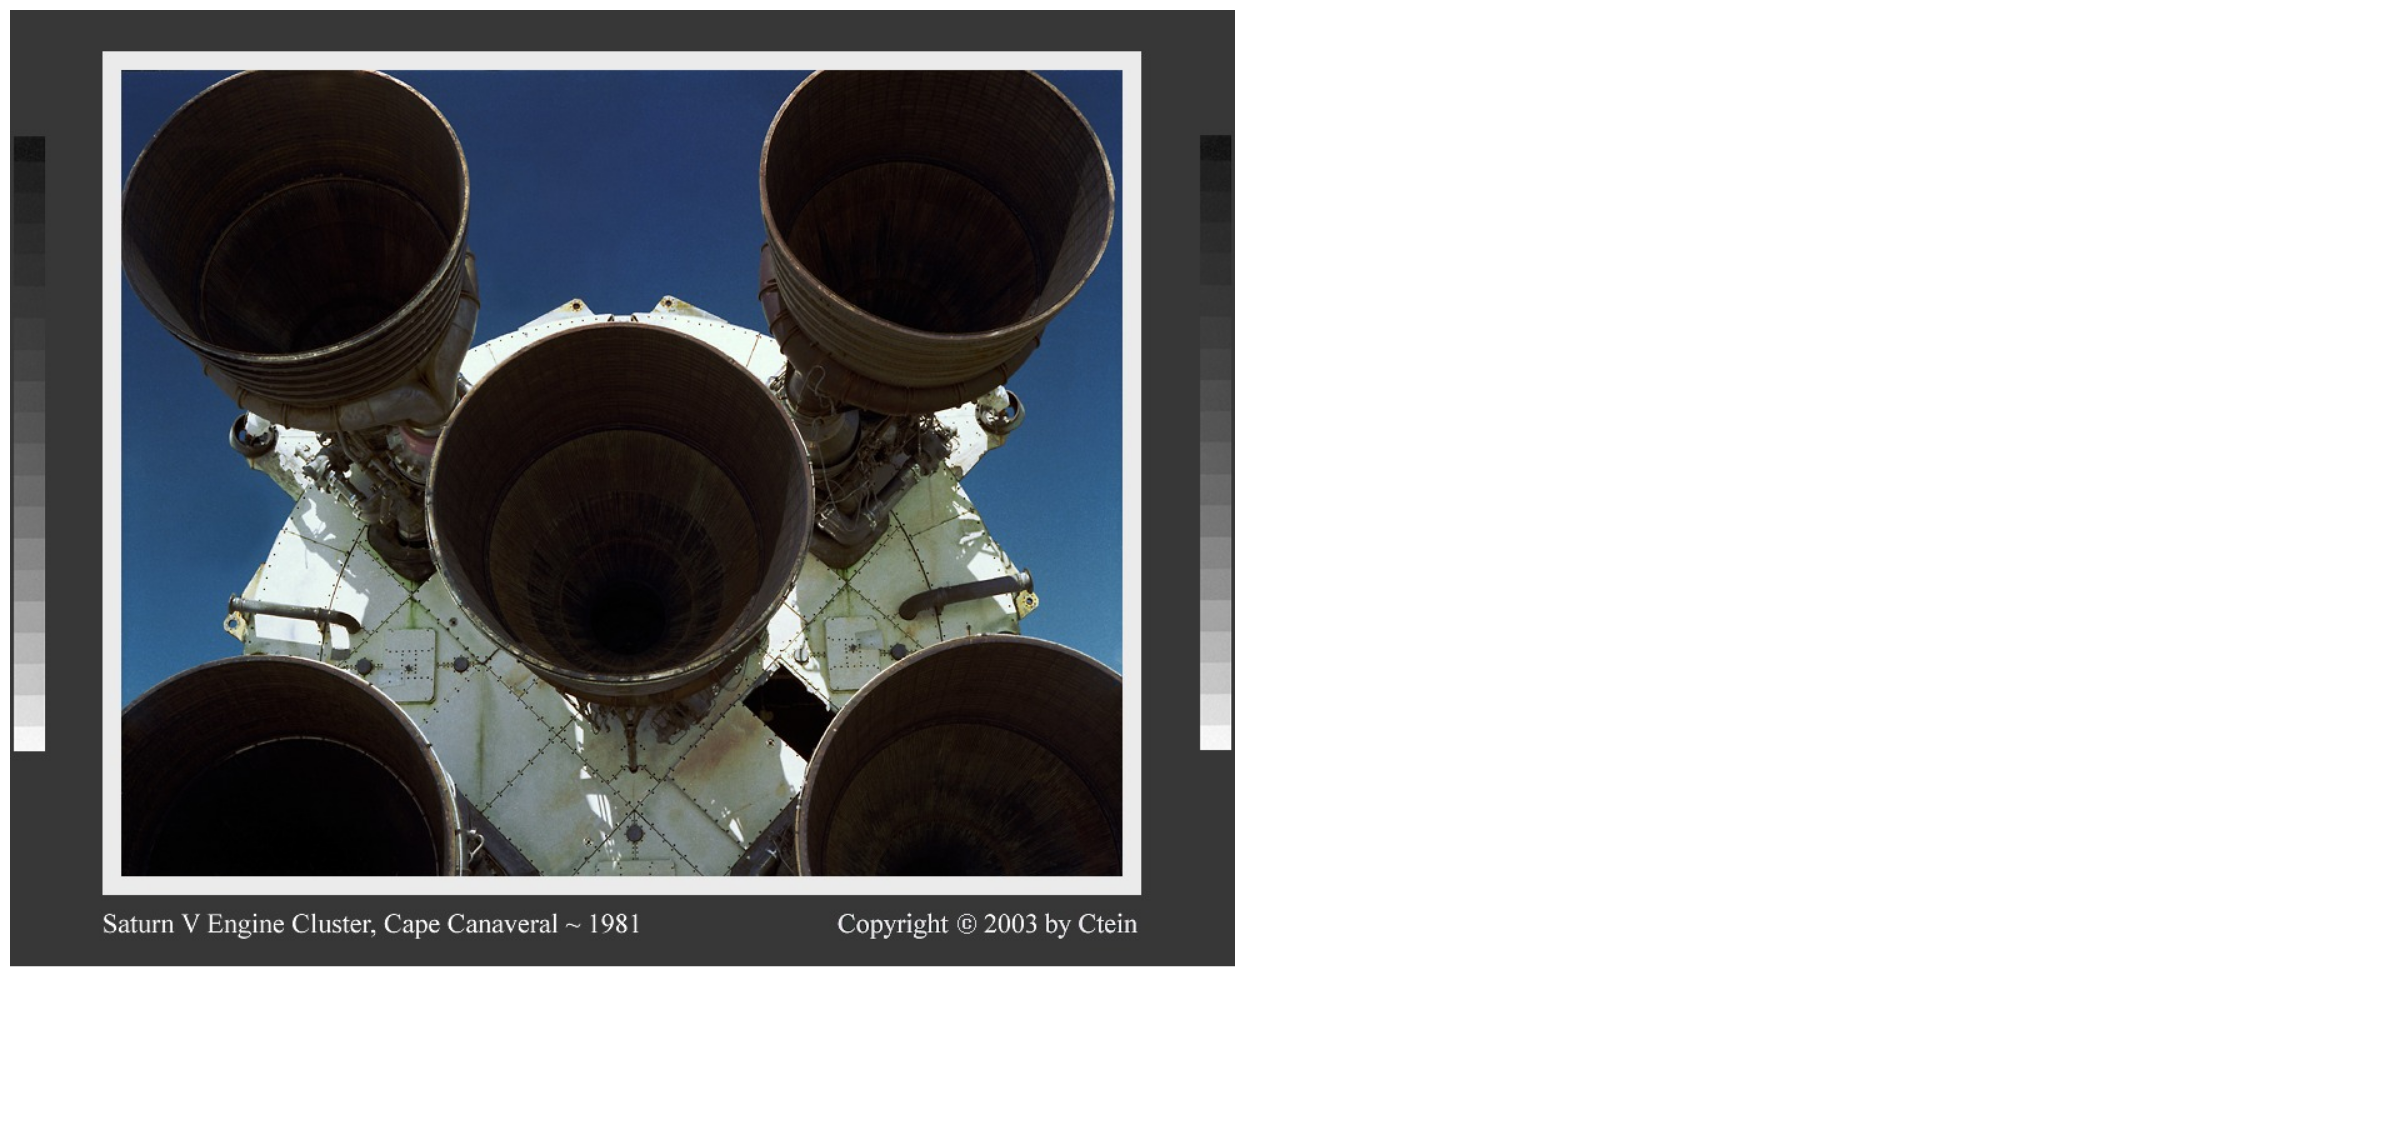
#include "include/core/SkBlurTypes.h"
#include "include/core/SkCanvas.h"
#include "include/core/SkData.h"
#include "include/core/SkFont.h"
#include "include/core/SkFontMgr.h"
#include "include/core/SkImage.h"
#include "include/core/SkMaskFilter.h"
#include "include/core/SkPaint.h"
#include "include/core/SkPathBuilder.h"
#include "include/core/SkTextBlob.h"
#include "include/effects/SkDashPathEffect.h"
#include "include/effects/SkGradientShader.h"
#include "include/utils/SkParsePath.h"

extern sk_sp<SkFontMgr> fontMgr;

void draw(SkCanvas* canvas) {
  SkPaint p;
  p.setAntiAlias(true);
  canvas->clear(SK_ColorWHITE);
  canvas->drawImageRect(SkImages::DeferredFromEncodedData(SkData::MakeFromFileName("images/1.png")), SkRect::MakeLTRB(10, 10, 1235, 967), SkSamplingOptions());
}
